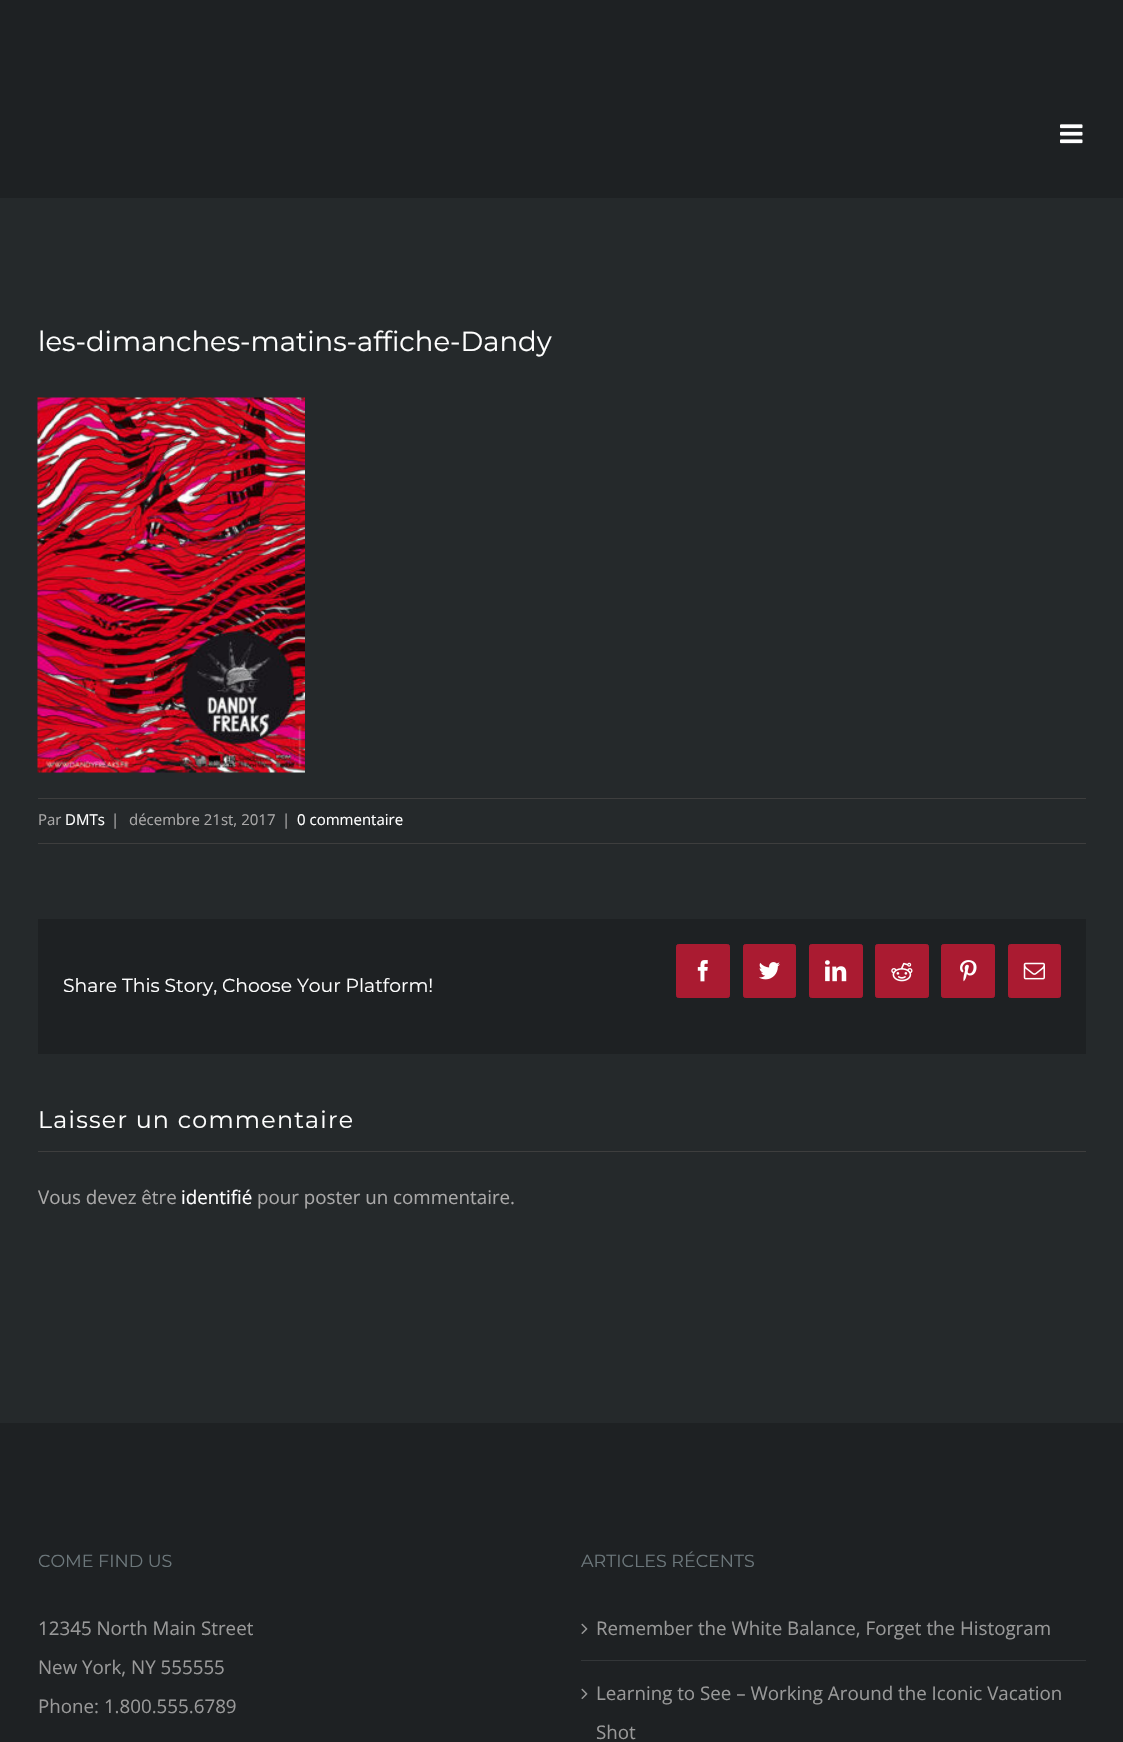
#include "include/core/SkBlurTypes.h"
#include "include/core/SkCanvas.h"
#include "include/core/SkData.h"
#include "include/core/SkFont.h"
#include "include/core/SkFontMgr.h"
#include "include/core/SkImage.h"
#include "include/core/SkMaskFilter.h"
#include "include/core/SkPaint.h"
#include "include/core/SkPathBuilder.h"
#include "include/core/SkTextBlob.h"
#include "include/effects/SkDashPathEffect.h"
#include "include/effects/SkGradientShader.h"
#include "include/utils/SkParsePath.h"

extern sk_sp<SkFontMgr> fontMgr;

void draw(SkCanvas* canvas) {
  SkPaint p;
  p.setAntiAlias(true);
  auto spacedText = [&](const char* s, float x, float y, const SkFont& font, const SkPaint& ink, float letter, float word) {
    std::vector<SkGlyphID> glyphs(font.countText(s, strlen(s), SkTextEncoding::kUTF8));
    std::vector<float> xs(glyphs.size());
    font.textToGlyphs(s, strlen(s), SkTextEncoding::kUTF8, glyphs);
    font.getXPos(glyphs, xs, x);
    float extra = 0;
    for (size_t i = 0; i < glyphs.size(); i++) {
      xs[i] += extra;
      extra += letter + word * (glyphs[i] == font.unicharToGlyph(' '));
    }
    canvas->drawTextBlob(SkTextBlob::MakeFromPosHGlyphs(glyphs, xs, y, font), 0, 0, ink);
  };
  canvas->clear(SkColorSetRGB(37, 41, 43));
  p.setColor(SkColorSetRGB(30, 33, 35));
  canvas->drawRect(SkRect::MakeLTRB(0, 0, 1123, 198), p);
  canvas->drawImageRect(SkImages::DeferredFromEncodedData(SkData::MakeFromFileName("images/1.png")), SkRect::MakeLTRB(1060, 124, 1083, 144), SkSamplingOptions());
  canvas->drawImageRect(SkImages::DeferredFromEncodedData(SkData::MakeFromFileName("images/2.png")), SkRect::MakeLTRB(37, 397, 305, 773), SkSamplingOptions());
  p.setColor(SkColorSetRGB(62, 62, 62));
  canvas->drawRect(SkRect::MakeLTRB(38, 798, 1086, 799), p);
  canvas->drawRect(SkRect::MakeLTRB(38, 843, 1086, 844), p);
  p.setColor(SkColorSetRGB(30, 33, 35));
  canvas->drawRect(SkRect::MakeLTRB(38, 919, 1086, 1054), p);
  p.setColor(SkColorSetRGB(170, 27, 49));
  canvas->drawRoundRect(SkRect::MakeLTRB(676.5f, 944.5f, 729.5f, 997.5f), 2, 2, p);
  p.setStyle(SkPaint::kStroke_Style);
  p.setStrokeWidth(1);
  canvas->drawRoundRect(SkRect::MakeLTRB(676.5f, 944.5f, 729.5f, 997.5f), 2, 2, p);
  canvas->drawImageRect(SkImages::DeferredFromEncodedData(SkData::MakeFromFileName("images/3.png")), SkRect::MakeLTRB(697, 960, 708, 982), SkSamplingOptions());
  p.setStyle(SkPaint::kFill_Style);
  canvas->drawRoundRect(SkRect::MakeLTRB(743.5f, 944.5f, 795.5f, 997.5f), 2, 2, p);
  p.setStyle(SkPaint::kStroke_Style);
  canvas->drawRoundRect(SkRect::MakeLTRB(743.5f, 944.5f, 795.5f, 997.5f), 2, 2, p);
  canvas->drawImageRect(SkImages::DeferredFromEncodedData(SkData::MakeFromFileName("images/4.png")), SkRect::MakeLTRB(759, 962, 780, 980), SkSamplingOptions());
  p.setStyle(SkPaint::kFill_Style);
  canvas->drawRoundRect(SkRect::MakeLTRB(809.5f, 944.5f, 862.5f, 997.5f), 2, 2, p);
  p.setStyle(SkPaint::kStroke_Style);
  canvas->drawRoundRect(SkRect::MakeLTRB(809.5f, 944.5f, 862.5f, 997.5f), 2, 2, p);
  canvas->drawImageRect(SkImages::DeferredFromEncodedData(SkData::MakeFromFileName("images/5.png")), SkRect::MakeLTRB(825, 960, 847, 982), SkSamplingOptions());
  p.setStyle(SkPaint::kFill_Style);
  canvas->drawRoundRect(SkRect::MakeLTRB(875.5f, 944.5f, 928.5f, 997.5f), 2, 2, p);
  p.setStyle(SkPaint::kStroke_Style);
  canvas->drawRoundRect(SkRect::MakeLTRB(875.5f, 944.5f, 928.5f, 997.5f), 2, 2, p);
  canvas->drawImageRect(SkImages::DeferredFromEncodedData(SkData::MakeFromFileName("images/6.png")), SkRect::MakeLTRB(891, 962, 913, 982), SkSamplingOptions());
  p.setStyle(SkPaint::kFill_Style);
  canvas->drawRoundRect(SkRect::MakeLTRB(941.5f, 944.5f, 994.5f, 997.5f), 2, 2, p);
  p.setStyle(SkPaint::kStroke_Style);
  canvas->drawRoundRect(SkRect::MakeLTRB(941.5f, 944.5f, 994.5f, 997.5f), 2, 2, p);
  canvas->drawImageRect(SkImages::DeferredFromEncodedData(SkData::MakeFromFileName("images/7.png")), SkRect::MakeLTRB(960, 960, 977, 982), SkSamplingOptions());
  p.setStyle(SkPaint::kFill_Style);
  canvas->drawRoundRect(SkRect::MakeLTRB(1008.5f, 944.5f, 1060.5f, 997.5f), 2, 2, p);
  p.setStyle(SkPaint::kStroke_Style);
  canvas->drawRoundRect(SkRect::MakeLTRB(1008.5f, 944.5f, 1060.5f, 997.5f), 2, 2, p);
  canvas->drawImageRect(SkImages::DeferredFromEncodedData(SkData::MakeFromFileName("images/8.png")), SkRect::MakeLTRB(1023, 962, 1045, 980), SkSamplingOptions());
  p.setStyle(SkPaint::kFill_Style);
  p.setColor(SkColorSetRGB(62, 62, 62));
  canvas->drawRect(SkRect::MakeLTRB(38, 1151, 1086, 1152), p);
  p.setColor(SkColorSetRGB(30, 33, 35));
  canvas->drawRect(SkRect::MakeLTRB(0, 1423, 1123, 1742), p);
  p.setColor(SkColorSetRGB(51, 54, 56));
  canvas->drawRect(SkRect::MakeLTRB(581, 1660, 1086, 1661), p);
  canvas->drawImageRect(SkImages::DeferredFromEncodedData(SkData::MakeFromFileName("images/9.png")), SkRect::MakeLTRB(581, 1623, 588, 1634), SkSamplingOptions());
  canvas->drawImageRect(SkImages::DeferredFromEncodedData(SkData::MakeFromFileName("images/9.png")), SkRect::MakeLTRB(581, 1688, 588, 1699), SkSamplingOptions());
  SkFont font1(fontMgr->matchFamilyStyle("Montserrat", SkFontStyle(100, SkFontStyle::kNormal_Width, SkFontStyle::kUpright_Slant)), 27.5f);
  font1.setSubpixel(true);
  p.setColor(SK_ColorWHITE);
  canvas->drawString("les-dimanches-matins-affiche-Dandy", 38, 351, font1, p);
  SkFont font2(fontMgr->matchFamilyStyle("Open Sans", SkFontStyle::Normal()), 15);
  font2.setSubpixel(true);
  p.setColor(SkColorSetRGB(170, 169, 169));
  canvas->drawString("Par", 38, 825, font2, p);
  p.setColor(SK_ColorWHITE);
  canvas->drawString("DMTs", 65, 825, font2, p);
  p.setColor(SkColorSetRGB(170, 169, 169));
  canvas->drawString("|", 111, 825, font2, p);
  canvas->drawString("décembre 21st, 2017", 129, 825, font2, p);
  canvas->drawString("|", 282, 825, font2, p);
  p.setColor(SK_ColorWHITE);
  canvas->drawString("0 commentaire", 297, 825, font2, p);
  SkFont font3(fontMgr->matchFamilyStyle("Montserrat", SkFontStyle(100, SkFontStyle::kNormal_Width, SkFontStyle::kUpright_Slant)), 18.75f);
  font3.setSubpixel(true);
  canvas->drawString("Share This Story, Choose Your Platform!", 63, 992, font3, p);
  SkFont font4(fontMgr->matchFamilyStyle("Montserrat", SkFontStyle(100, SkFontStyle::kNormal_Width, SkFontStyle::kUpright_Slant)), 23.75f);
  font4.setSubpixel(true);
  spacedText("Laisser un commentaire", 38, 1128, font4, p, 1.25f, 0);
  SkFont font5(fontMgr->matchFamilyStyle("Open Sans", SkFontStyle::Normal()), 18.75f);
  font5.setSubpixel(true);
  p.setColor(SkColorSetRGB(170, 169, 169));
  canvas->drawString("Vous devez être", 38, 1204, font5, p);
  p.setColor(SK_ColorWHITE);
  canvas->drawString("identifié", 181, 1204, font5, p);
  p.setColor(SkColorSetRGB(170, 169, 169));
  canvas->drawString("pour poster un commentaire.", 257, 1204, font5, p);
  SkFont font6(fontMgr->matchFamilyStyle("Montserrat", SkFontStyle(100, SkFontStyle::kNormal_Width, SkFontStyle::kUpright_Slant)), 17.5f);
  font6.setSubpixel(true);
  p.setColor(SkColorSetRGB(108, 119, 123));
  canvas->drawString("COME FIND US", 38, 1567, font6, p);
  p.setColor(SkColorSetRGB(153, 153, 153));
  canvas->drawString("12345 North Main Street", 38, 1635, font5, p);
  canvas->drawString("New York, NY 555555", 38, 1674, font5, p);
  canvas->drawString("Phone: 1.800.555.6789", 38, 1713, font5, p);
  p.setColor(SkColorSetRGB(108, 119, 123));
  canvas->drawString("ARTICLES RÉCENTS", 581, 1567, font6, p);
  p.setColor(SkColorSetRGB(153, 153, 153));
  canvas->drawString("Remember the White Balance, Forget the Histogram", 596, 1635, font5, p);
  canvas->drawString("Learning to See – Working Around the Iconic Vacation", 596, 1700, font5, p);
  canvas->drawString("Shot", 596, 1739, font5, p);
}
